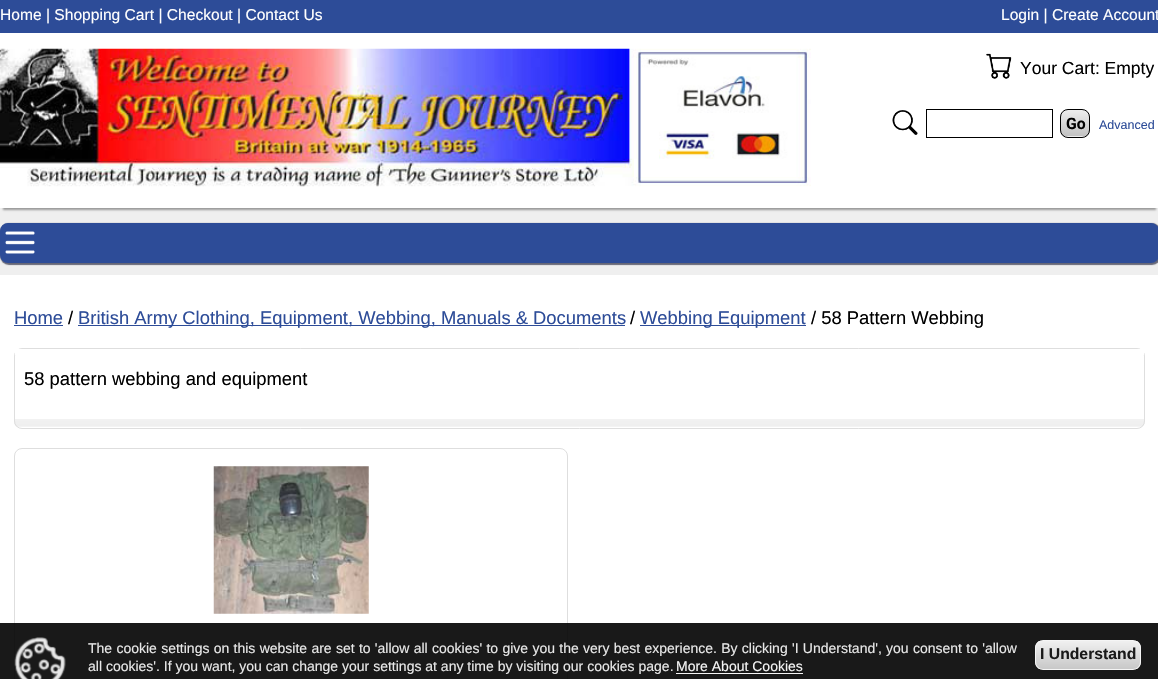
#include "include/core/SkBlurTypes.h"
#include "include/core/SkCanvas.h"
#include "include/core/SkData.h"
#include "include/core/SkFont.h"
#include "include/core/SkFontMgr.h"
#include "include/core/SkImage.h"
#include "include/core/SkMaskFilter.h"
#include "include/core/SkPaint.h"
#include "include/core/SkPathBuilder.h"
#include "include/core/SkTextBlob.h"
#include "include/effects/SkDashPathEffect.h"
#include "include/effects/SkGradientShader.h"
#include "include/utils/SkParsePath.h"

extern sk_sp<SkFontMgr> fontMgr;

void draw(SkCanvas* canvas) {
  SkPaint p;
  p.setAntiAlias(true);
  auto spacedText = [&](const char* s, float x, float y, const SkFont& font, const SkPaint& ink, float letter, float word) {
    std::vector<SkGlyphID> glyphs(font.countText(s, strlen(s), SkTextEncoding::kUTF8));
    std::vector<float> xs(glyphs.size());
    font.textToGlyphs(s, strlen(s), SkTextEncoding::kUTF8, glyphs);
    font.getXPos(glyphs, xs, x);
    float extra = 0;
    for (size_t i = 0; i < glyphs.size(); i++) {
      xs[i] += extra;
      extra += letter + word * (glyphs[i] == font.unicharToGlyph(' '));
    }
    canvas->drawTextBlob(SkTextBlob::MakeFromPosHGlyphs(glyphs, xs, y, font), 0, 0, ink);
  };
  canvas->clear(SkColorSetRGB(239, 239, 239));
  p.setColor(SkColorSetRGB(45, 76, 152));
  canvas->drawRect(SkRect::MakeLTRB(0, 0, 1158, 33), p);
  p.setColor(SkColorSetRGB(153, 153, 153));
  p.setMaskFilter(SkMaskFilter::MakeBlur(kNormal_SkBlurStyle, 1));
  canvas->drawRect(SkRect::MakeLTRB(3, 40, 1156, 210), p);
  p.setMaskFilter(nullptr);
  p.setColor(SK_ColorWHITE);
  canvas->drawRect(SkRect::MakeLTRB(0, 33, 1158, 208), p);
  canvas->drawImageRect(SkImages::DeferredFromEncodedData(SkData::MakeFromFileName("images/1.png")), SkRect::MakeLTRB(0, 48, 811, 187), SkSamplingOptions());
  canvas->drawImageRect(SkImages::DeferredFromEncodedData(SkData::MakeFromFileName("images/2.png")), SkRect::MakeLTRB(986, 53, 1012, 79), SkSamplingOptions());
  canvas->drawImageRect(SkImages::DeferredFromEncodedData(SkData::MakeFromFileName("images/3.png")), SkRect::MakeLTRB(892, 110, 918, 135), SkSamplingOptions());
  p.setStyle(SkPaint::kStroke_Style);
  p.setStrokeWidth(1);
  p.setColor(SK_ColorBLACK);
  canvas->drawRect(SkRect::MakeLTRB(926.5f, 109.5f, 1052.5f, 137.5f), p);
  canvas->save();
  canvas->clipPath(SkPathBuilder().moveTo(1068, 109).lineTo(1082, 109).cubicTo(1086.5f, 109, 1090, 112.5f, 1090, 117).lineTo(1090, 130).cubicTo(1090, 134.5f, 1086.5f, 138, 1082, 138).lineTo(1068, 138).cubicTo(1063.5f, 138, 1060, 134.5f, 1060, 130).lineTo(1060, 117).cubicTo(1060, 112.5f, 1063.5f, 109, 1068, 109).close().detach(), true);
  p.setStyle(SkPaint::kFill_Style);
  {
    const SkColor colors[] = {SkColorSetRGB(238, 238, 238), SkColorSetRGB(194, 194, 194)};
    const float stops[] = {0, 1};
    const SkPoint ends[] = {{1075, 110}, {1075, 136}};
    p.setShader(SkGradientShader::MakeLinear(ends, colors, stops, 2, SkTileMode::kClamp));
    p.setAlpha(255);
  }
  canvas->drawRect(SkRect::MakeLTRB(1060, 110, 1090, 136), p);
  {
    const SkColor colors[] = {SkColorSetRGB(238, 238, 238), SkColorSetRGB(194, 194, 194)};
    const float stops[] = {0, 1};
    const SkPoint ends[] = {{1075, 136}, {1075, 163}};
    p.setShader(SkGradientShader::MakeLinear(ends, colors, stops, 2, SkTileMode::kClamp));
    p.setAlpha(255);
  }
  canvas->drawRect(SkRect::MakeLTRB(1060, 136, 1090, 138), p);
  canvas->restore();
  p.setStyle(SkPaint::kStroke_Style);
  p.setShader(nullptr);
  p.setColor(SK_ColorBLACK);
  canvas->drawRoundRect(SkRect::MakeLTRB(1060.5f, 109.5f, 1089.5f, 137.5f), 7.5f, 7.5f, p);
  p.setStyle(SkPaint::kFill_Style);
  p.setColor(SkColorSetRGB(102, 103, 119));
  p.setMaskFilter(SkMaskFilter::MakeBlur(kNormal_SkBlurStyle, 0.5f));
  canvas->drawRoundRect(SkRect::MakeLTRB(0, 223, 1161, 265), 9, 9, p);
  p.setMaskFilter(nullptr);
  p.setColor(SkColorSetRGB(45, 76, 152));
  canvas->drawRoundRect(SkRect::MakeLTRB(0, 223, 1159, 263), 8, 8, p);
  canvas->drawImageRect(SkImages::DeferredFromEncodedData(SkData::MakeFromFileName("images/4.png")), SkRect::MakeLTRB(5, 231, 35, 254), SkSamplingOptions());
  p.setColor(SK_ColorWHITE);
  canvas->drawRect(SkRect::MakeLTRB(0, 275, 1158, 679), p);
  p.setColor(SkColorSetRGB(45, 76, 152));
  canvas->drawRect(SkRect::MakeLTRB(14, 325, 63, 326), p);
  canvas->drawRect(SkRect::MakeLTRB(78, 325, 625, 326), p);
  canvas->drawRect(SkRect::MakeLTRB(640, 325, 806, 326), p);
  canvas->drawImageRect(SkImages::DeferredFromEncodedData(SkData::MakeFromFileName("images/5.png")), SkRect::MakeLTRB(14, 419, 1145, 427), SkSamplingOptions());
  p.setStyle(SkPaint::kStroke_Style);
  p.setColor(SkColorSetRGB(222, 222, 222));
  canvas->drawRoundRect(SkRect::MakeLTRB(14.5f, 348.5f, 1144.5f, 428.5f), 7.5f, 7.5f, p);
  p.setStyle(SkPaint::kFill_Style);
  p.setColor(SK_ColorWHITE);
  canvas->drawRect(SkRect::MakeLTRB(15, 349, 1144, 355), p);
  p.setStyle(SkPaint::kStroke_Style);
  p.setColor(SkColorSetRGB(222, 222, 222));
  canvas->drawRoundRect(SkRect::MakeLTRB(14.5f, 448.5f, 567.5f, 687.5f), 7.5f, 7.5f, p);
  canvas->drawImageRect(SkImages::DeferredFromEncodedData(SkData::MakeFromFileName("images/6.png")), SkRect::MakeLTRB(213, 466, 369, 614), SkSamplingOptions());
  p.setStyle(SkPaint::kFill_Style);
  p.setColor(SkColorSetARGB(230, 0, 0, 0));
  canvas->drawRect(SkRect::MakeLTRB(0, 623, 1158, 679), p);
  canvas->drawImageRect(SkImages::DeferredFromEncodedData(SkData::MakeFromFileName("images/7.png")), SkRect::MakeLTRB(14, 637, 66, 679), SkSamplingOptions());
  p.setColor(SkColorSetRGB(245, 245, 245));
  canvas->drawRect(SkRect::MakeLTRB(676, 673, 803, 674), p);
  canvas->save();
  canvas->clipPath(SkPathBuilder().moveTo(1043, 640).lineTo(1133, 640).cubicTo(1137.5f, 640, 1141, 643.5f, 1141, 648).lineTo(1141, 662).cubicTo(1141, 666.5f, 1137.5f, 670, 1133, 670).lineTo(1043, 670).cubicTo(1038.5f, 670, 1035, 666.5f, 1035, 662).lineTo(1035, 648).cubicTo(1035, 643.5f, 1038.5f, 640, 1043, 640).close().detach(), true);
  {
    const SkColor colors[] = {SkColorSetRGB(240, 240, 240), SkColorSetRGB(200, 200, 200)};
    const float stops[] = {0, 1};
    const SkPoint ends[] = {{1088, 641}, {1088, 669}};
    p.setShader(SkGradientShader::MakeLinear(ends, colors, stops, 2, SkTileMode::kClamp));
    p.setAlpha(255);
  }
  canvas->drawRect(SkRect::MakeLTRB(1035, 641, 1141, 669), p);
  canvas->restore();
  p.setStyle(SkPaint::kStroke_Style);
  p.setShader(nullptr);
  p.setColor(SkColorSetRGB(245, 245, 245));
  canvas->drawRoundRect(SkRect::MakeLTRB(1035.5f, 640.5f, 1140.5f, 669.5f), 7.5f, 7.5f, p);
  SkFont font1(fontMgr->matchFamilyStyle("Liberation Sans", SkFontStyle::Normal()), 15.6f);
  font1.setSubpixel(true);
  p.setStyle(SkPaint::kFill_Style);
  p.setColor(SK_ColorWHITE);
  canvas->drawString("Home | Shopping Cart | Checkout | Contact Us", 0, 20, font1, p);
  canvas->drawString("Login | Create Account", 1001, 20, font1, p);
  SkFont font2(fontMgr->matchFamilyStyle("Liberation Sans", SkFontStyle::Normal()), 17.5f);
  font2.setSubpixel(true);
  p.setColor(SK_ColorBLACK);
  canvas->drawString("Your Cart: Empty", 1020, 74, font2, p);
  SkFont font3(fontMgr->matchFamilyStyle("Roboto", SkFontStyle::Bold()), 15.75f);
  font3.setSubpixel(true);
  canvas->drawString("Go", 1066, 129, font3, p);
  SkFont font4(fontMgr->matchFamilyStyle("Liberation Sans", SkFontStyle::Normal()), 12.5f);
  font4.setSubpixel(true);
  p.setColor(SkColorSetRGB(45, 76, 152));
  canvas->drawString("Advanced", 1099, 129, font4, p);
  SkFont font5(fontMgr->matchFamilyStyle("Liberation Sans", SkFontStyle::Normal()), 18.4f);
  font5.setSubpixel(true);
  canvas->drawString("Home", 14, 324, font5, p);
  p.setColor(SK_ColorBLACK);
  canvas->drawString("/", 68, 324, font5, p);
  p.setColor(SkColorSetRGB(45, 76, 152));
  canvas->drawString("British Army Clothing, Equipment, Webbing, Manuals & Documents", 78, 324, font5, p);
  p.setColor(SK_ColorBLACK);
  canvas->drawString("/", 630, 324, font5, p);
  p.setColor(SkColorSetRGB(45, 76, 152));
  canvas->drawString("Webbing Equipment", 640, 324, font5, p);
  p.setColor(SK_ColorBLACK);
  canvas->drawString("/ 58 Pattern Webbing", 811, 324, font5, p);
  canvas->drawString("58 pattern webbing and equipment", 24, 385, font5, p);
  SkFont font6(fontMgr->matchFamilyStyle("Liberation Sans", SkFontStyle::Normal()), 14);
  font6.setSubpixel(true);
  p.setColor(SkColorSetRGB(232, 232, 232));
  spacedText("The cookie settings on this website are set to 'allow all cookies' to give you the very best experience. By clicking 'I Understand', you consent to 'allow", 88, 653, font6, p, 0, 0.4f);
  canvas->drawString("all cookies'. If you want, you can change your settings at any time by visiting our cookies page.", 88, 671, font6, p);
  p.setColor(SkColorSetRGB(245, 245, 245));
  canvas->drawString("More About Cookies", 676, 671, font6, p);
  SkFont font7(fontMgr->matchFamilyStyle("Liberation Sans", SkFontStyle::Bold()), 15.75f);
  font7.setSubpixel(true);
  p.setColor(SkColorSetRGB(26, 26, 26));
  canvas->drawString("I Understand", 1040, 659, font7, p);
}
